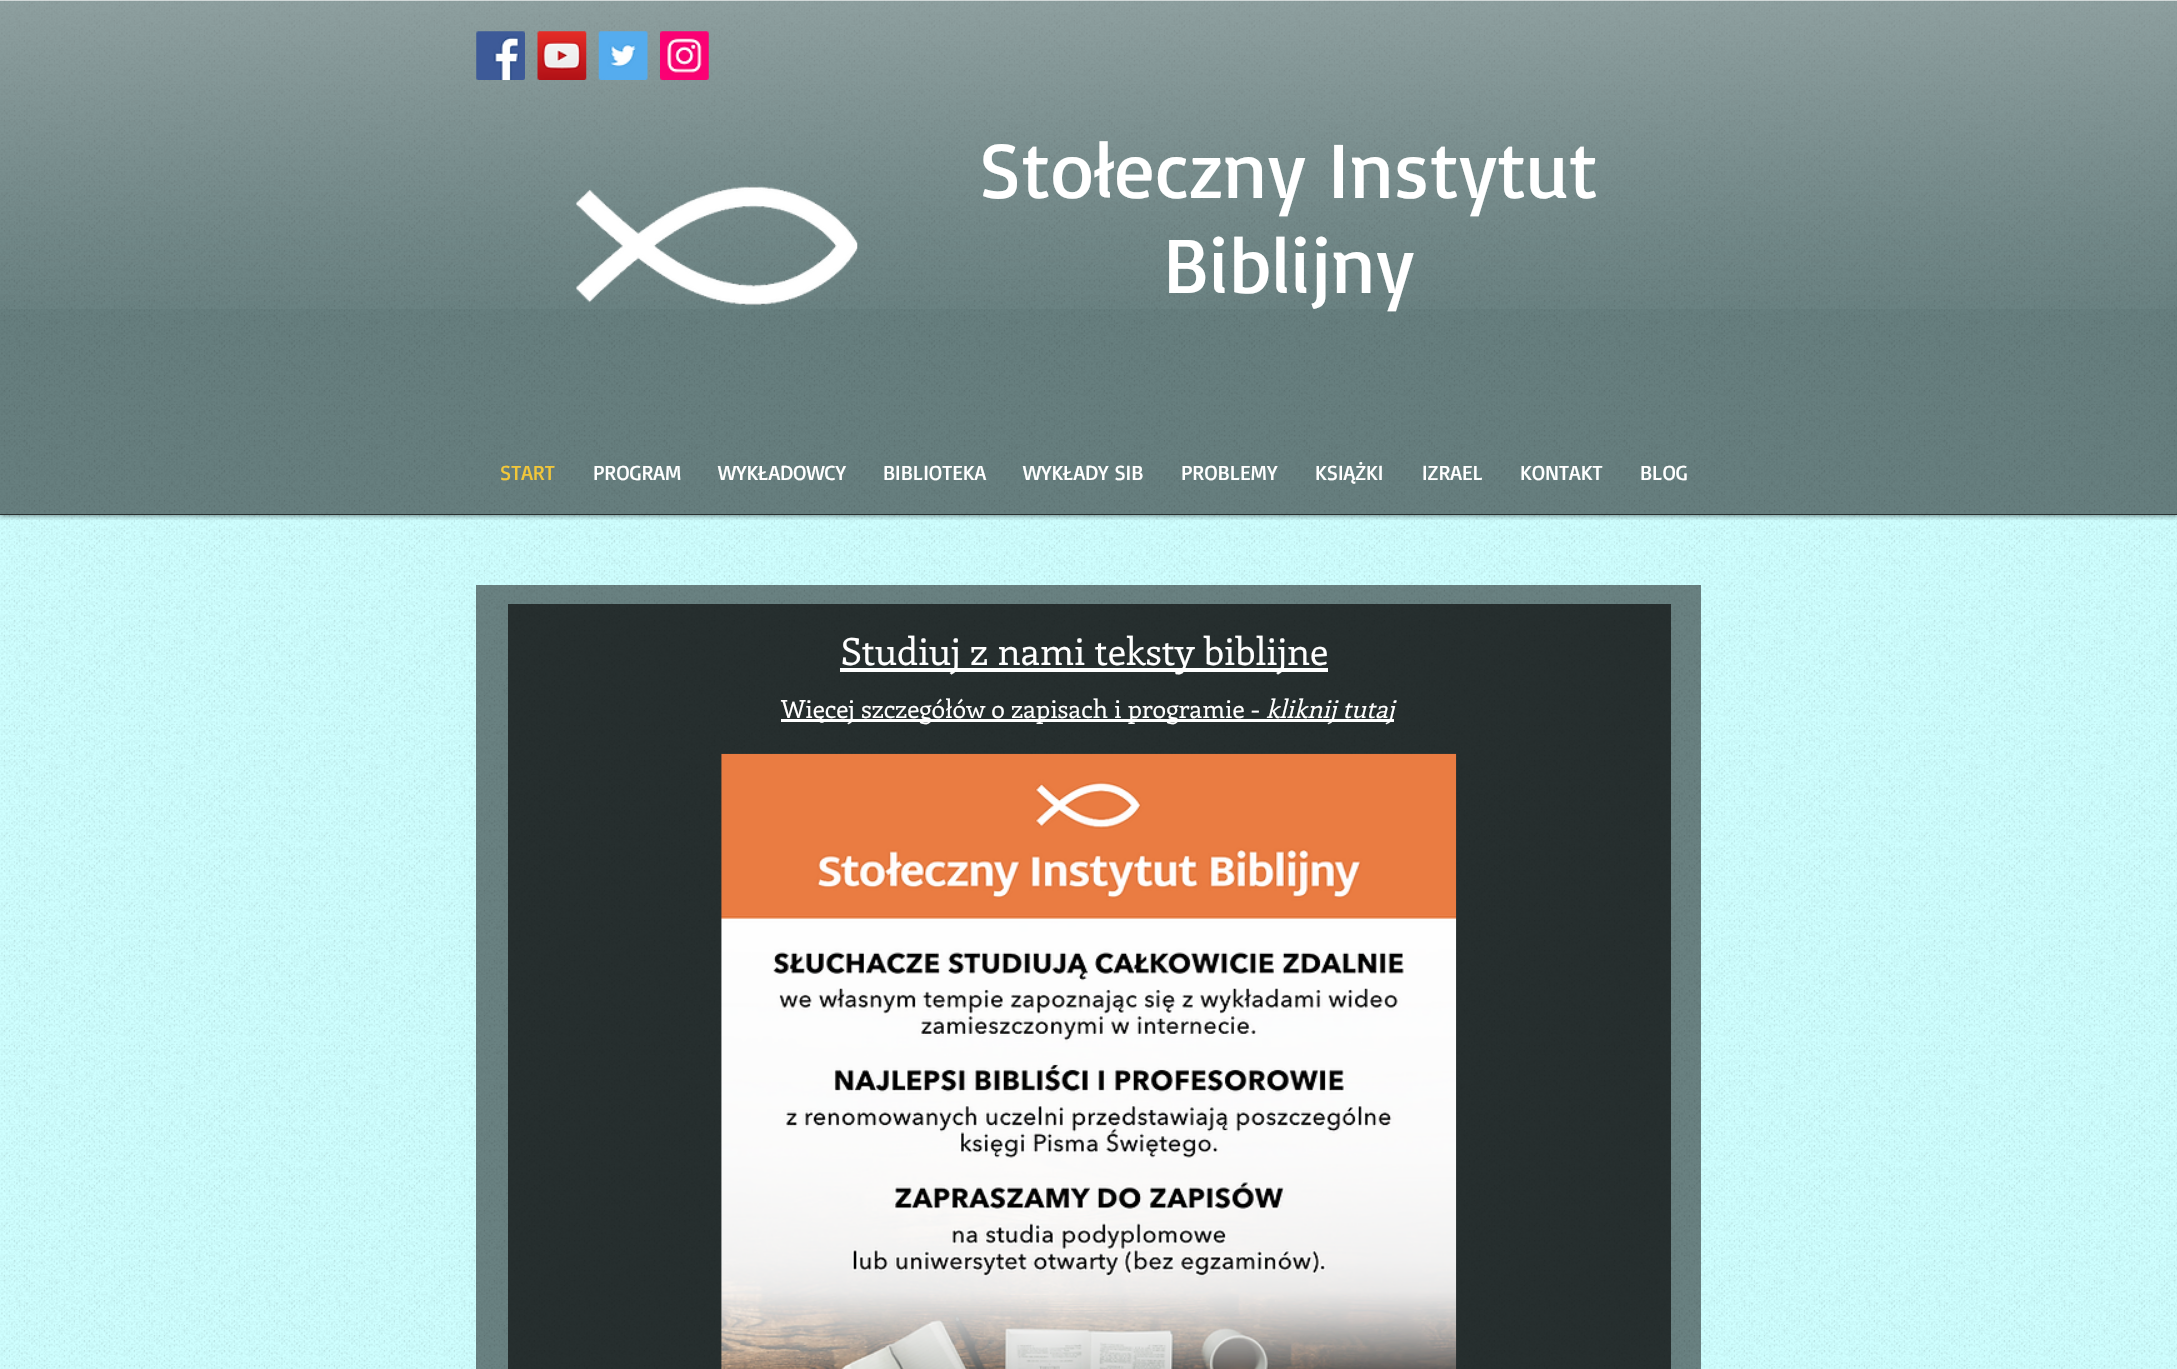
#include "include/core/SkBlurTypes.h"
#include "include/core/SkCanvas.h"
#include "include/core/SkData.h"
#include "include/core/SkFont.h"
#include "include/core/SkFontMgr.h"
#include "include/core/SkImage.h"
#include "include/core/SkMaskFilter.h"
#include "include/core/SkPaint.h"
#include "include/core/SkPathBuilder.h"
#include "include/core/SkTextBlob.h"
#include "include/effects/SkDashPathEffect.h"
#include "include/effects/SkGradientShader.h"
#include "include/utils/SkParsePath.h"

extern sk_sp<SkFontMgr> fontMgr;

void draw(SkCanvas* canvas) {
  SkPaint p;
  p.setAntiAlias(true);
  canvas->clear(SkColorSetRGB(207, 255, 255));
  canvas->drawImageRect(SkImages::DeferredFromEncodedData(SkData::MakeFromFileName("images/1.png")), SkRect::MakeLTRB(0, 0, 2177, 1369), SkSamplingOptions());
  canvas->save();
  canvas->clipRect(SkRect::MakeLTRB(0, 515, 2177, 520));
  p.setColor(SkColorSetARGB(153, 0, 0, 0));
  p.setMaskFilter(SkMaskFilter::MakeBlur(kNormal_SkBlurStyle, 3));
  canvas->drawRect(SkRect::MakeLTRB(0, 0, 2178, 515), p);
  p.setMaskFilter(nullptr);
  canvas->restore();
  p.setColor(SkColorSetARGB(128, 0, 0, 0));
  canvas->drawRect(SkRect::MakeLTRB(0, 0, 2177, 515), p);
  canvas->drawImageRect(SkImages::DeferredFromEncodedData(SkData::MakeFromFileName("images/2.png")), SkRect::MakeLTRB(0, 0, 2177, 309), SkSamplingOptions());
  p.setColor(SkColorSetARGB(153, 0, 0, 0));
  canvas->drawRect(SkRect::MakeLTRB(0, 514, 2177, 515), p);
  p.setColor(SkColorSetARGB(153, 255, 255, 255));
  canvas->drawRect(SkRect::MakeLTRB(0, 0, 2177, 1), p);
  canvas->drawImageRect(SkImages::DeferredFromEncodedData(SkData::MakeFromFileName("images/3.png")), SkRect::MakeLTRB(476, 31, 525, 80), SkSamplingOptions());
  canvas->drawImageRect(SkImages::DeferredFromEncodedData(SkData::MakeFromFileName("images/4.png")), SkRect::MakeLTRB(537, 31, 587, 80), SkSamplingOptions());
  canvas->drawImageRect(SkImages::DeferredFromEncodedData(SkData::MakeFromFileName("images/5.png")), SkRect::MakeLTRB(598, 31, 648, 80), SkSamplingOptions());
  canvas->drawImageRect(SkImages::DeferredFromEncodedData(SkData::MakeFromFileName("images/6.png")), SkRect::MakeLTRB(660, 31, 709, 80), SkSamplingOptions());
  canvas->drawImageRect(SkImages::DeferredFromEncodedData(SkData::MakeFromFileName("images/7.png")), SkRect::MakeLTRB(576, 186, 858, 305), SkSamplingOptions());
  p.setColor(SkColorSetARGB(125, 0, 0, 0));
  canvas->drawRect(SkRect::MakeLTRB(476, 585, 1701, 1369), p);
  p.setColor(SkColorSetARGB(163, 0, 0, 0));
  canvas->drawRect(SkRect::MakeLTRB(508, 604, 1671, 1369), p);
  p.setColor(SK_ColorWHITE);
  canvas->drawRect(SkRect::MakeLTRB(840, 668, 1328, 672), p);
  canvas->drawRect(SkRect::MakeLTRB(781, 719, 1394, 722), p);
  canvas->drawImageRect(SkImages::DeferredFromEncodedData(SkData::MakeFromFileName("images/8.png")), SkRect::MakeLTRB(721, 753, 1457, 1369), SkSamplingOptions());
  SkFont font1(fontMgr->matchFamilyStyle("Basic", SkFontStyle::Normal()), 80);
  font1.setSubpixel(true);
  canvas->drawString("Stołeczny Instytut", 979, 198, font1, p);
  canvas->drawString("Biblijny", 1163, 293, font1, p);
  SkFont font2(fontMgr->matchFamilyStyle("Basic", SkFontStyle::Normal()), 21.25f);
  font2.setSubpixel(true);
  p.setColor(SkColorSetRGB(242, 199, 58));
  canvas->drawString("START", 500, 480, font2, p);
  p.setColor(SK_ColorWHITE);
  canvas->drawString("PROGRAM", 593, 480, font2, p);
  canvas->drawString("WYKŁADOWCY", 718, 480, font2, p);
  canvas->drawString("BIBLIOTEKA", 883, 480, font2, p);
  canvas->drawString("WYKŁADY SIB", 1023, 480, font2, p);
  canvas->drawString("PROBLEMY", 1181, 480, font2, p);
  canvas->drawString("KSIĄŻKI", 1315, 480, font2, p);
  canvas->drawString("IZRAEL", 1422, 480, font2, p);
  canvas->drawString("KONTAKT", 1520, 480, font2, p);
  canvas->drawString("BLOG", 1640, 480, font2, p);
  SkFont font3(fontMgr->matchFamilyStyle("Enriqueta", SkFontStyle::Normal()), 37.5f);
  font3.setSubpixel(true);
  canvas->drawString("Studiuj z nami teksty biblijne", 841, 665, font3, p);
  SkFont font4(fontMgr->matchFamilyStyle("Enriqueta", SkFontStyle::Normal()), 25);
  font4.setSubpixel(true);
  canvas->drawString("Więcej szczegółów o zapisach i programie -", 781, 718, font4, p);
  SkFont font5(fontMgr->matchFamilyStyle("Enriqueta", SkFontStyle::Italic()), 25);
  font5.setSubpixel(true);
  canvas->drawString("kliknij tutaj", 1266, 718, font5, p);
}
